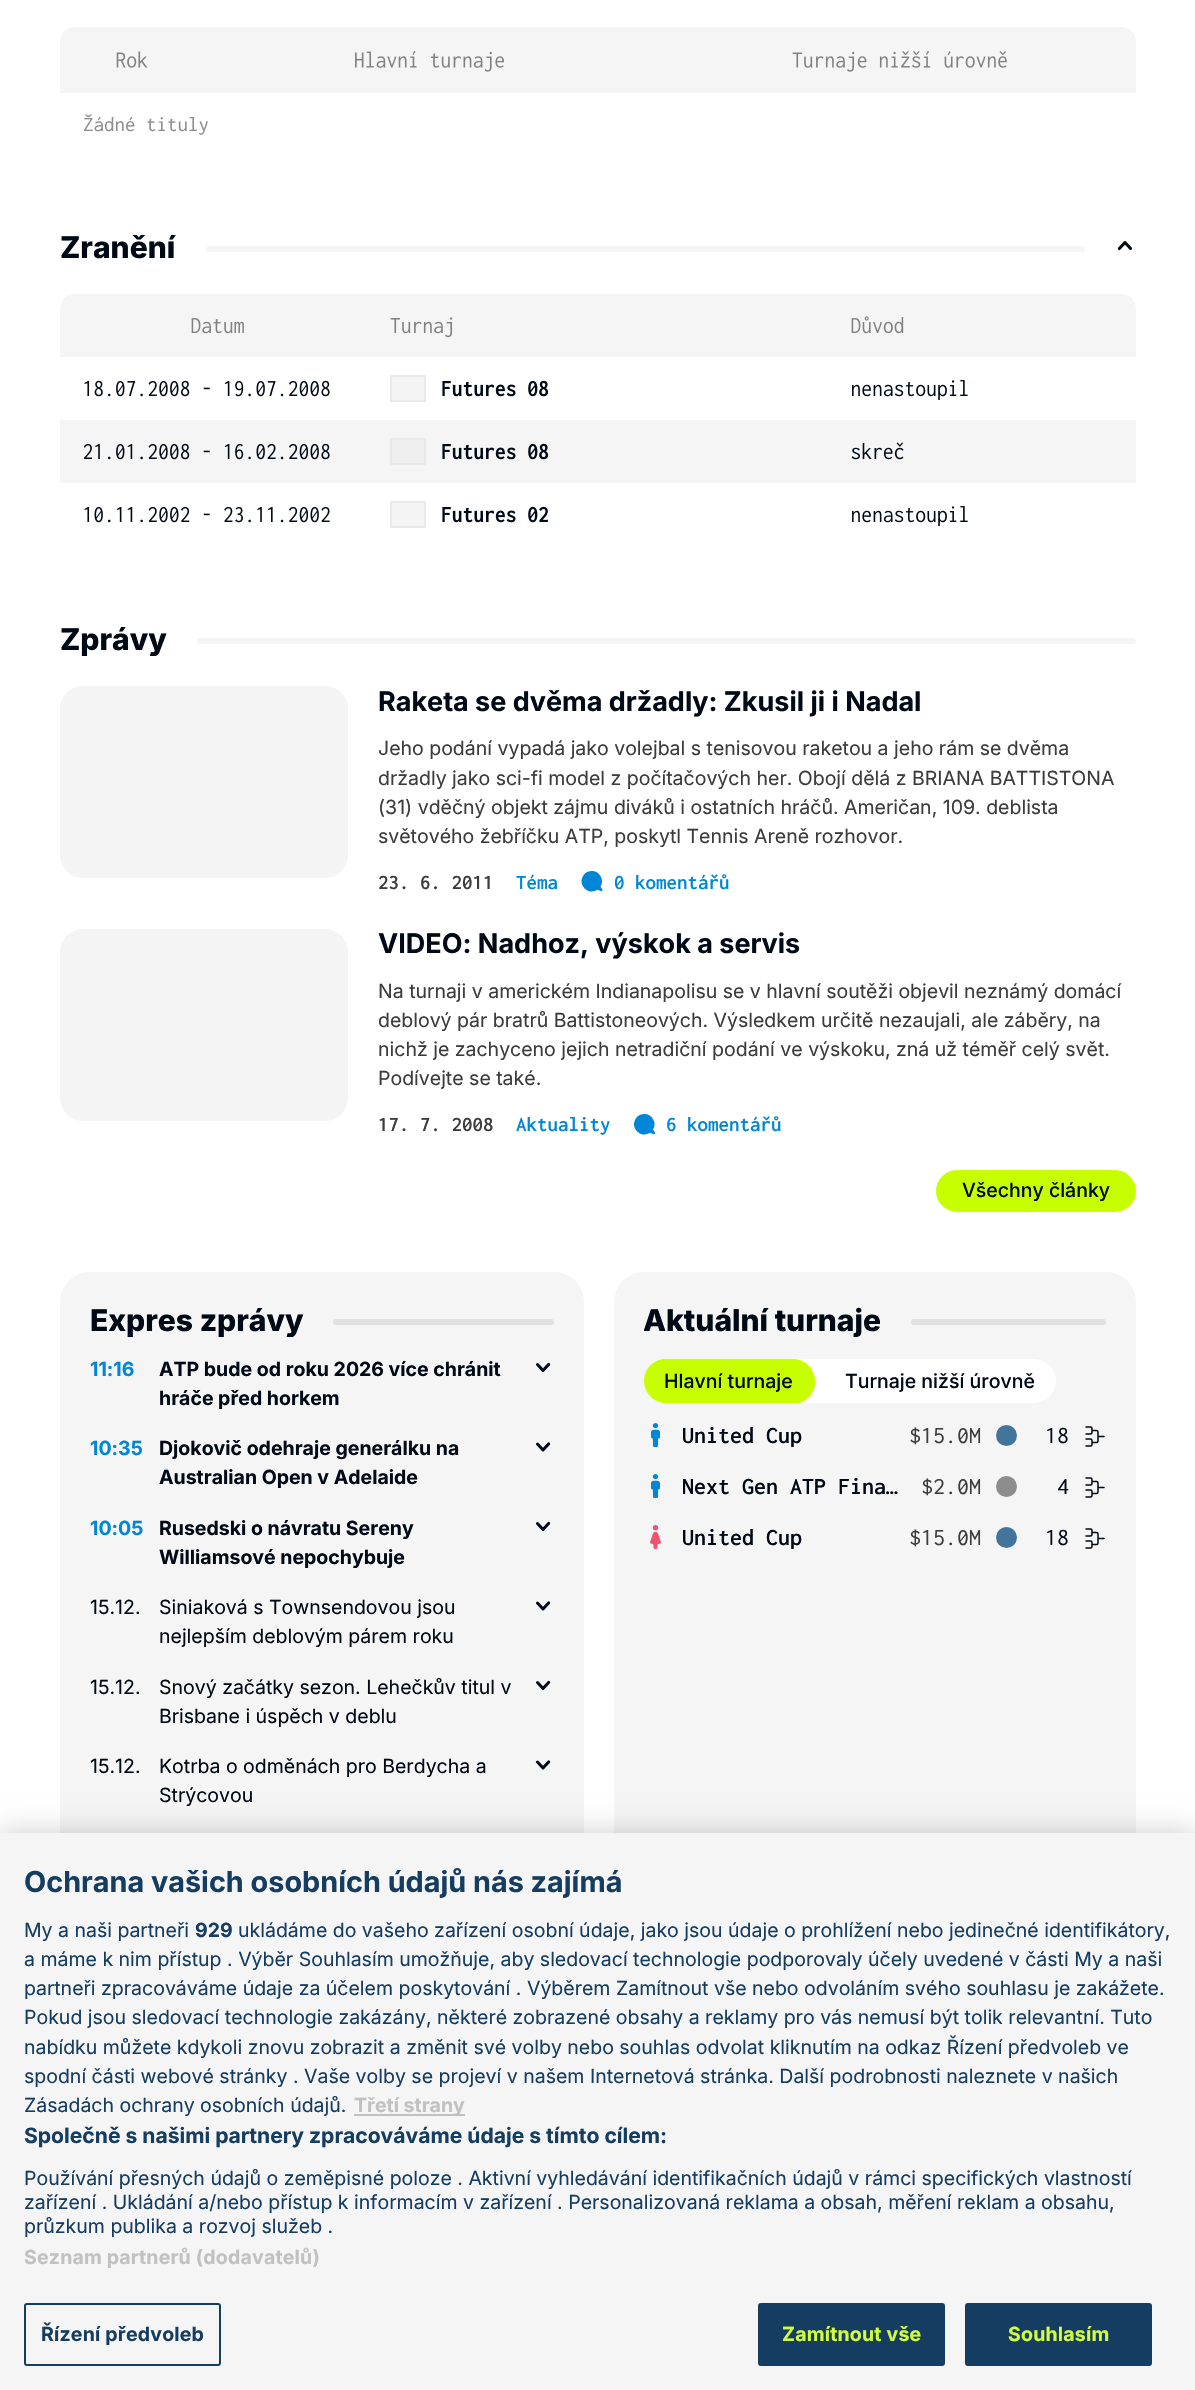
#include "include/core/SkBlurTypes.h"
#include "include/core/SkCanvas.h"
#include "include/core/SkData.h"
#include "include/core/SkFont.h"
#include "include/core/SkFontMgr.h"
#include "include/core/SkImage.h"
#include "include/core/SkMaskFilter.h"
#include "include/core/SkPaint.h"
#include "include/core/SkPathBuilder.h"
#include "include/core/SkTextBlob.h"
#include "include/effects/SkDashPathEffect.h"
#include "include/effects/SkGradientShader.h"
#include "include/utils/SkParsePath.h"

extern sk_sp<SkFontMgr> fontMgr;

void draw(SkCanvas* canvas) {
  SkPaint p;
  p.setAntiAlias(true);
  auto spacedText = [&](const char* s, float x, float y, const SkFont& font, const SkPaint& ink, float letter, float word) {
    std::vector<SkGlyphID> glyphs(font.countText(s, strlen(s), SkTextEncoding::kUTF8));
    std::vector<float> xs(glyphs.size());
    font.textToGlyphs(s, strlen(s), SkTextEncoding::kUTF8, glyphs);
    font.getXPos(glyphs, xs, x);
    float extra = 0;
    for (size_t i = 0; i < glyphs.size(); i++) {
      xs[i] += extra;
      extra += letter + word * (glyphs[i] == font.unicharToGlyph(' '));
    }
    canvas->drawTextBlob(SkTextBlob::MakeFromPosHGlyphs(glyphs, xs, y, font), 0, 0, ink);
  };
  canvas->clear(SK_ColorWHITE);
  p.setColor(SkColorSetRGB(245, 245, 245));
  canvas->drawPath(SkPathBuilder().moveTo(75, 27).lineTo(195, 27).lineTo(195, 93).lineTo(60, 93).lineTo(60, 42).cubicTo(60, 33.5f, 66.5f, 27, 75, 27).close().detach(), p);
  canvas->drawImageRect(SkImages::DeferredFromEncodedData(SkData::MakeFromFileName("images/1.png")), SkRect::MakeLTRB(116, 51, 148, 68), SkSamplingOptions());
  canvas->drawRect(SkRect::MakeLTRB(195, 27, 666, 93), p);
  canvas->drawImageRect(SkImages::DeferredFromEncodedData(SkData::MakeFromFileName("images/2.png")), SkRect::MakeLTRB(355, 50, 504, 72), SkSamplingOptions());
  canvas->drawPath(SkPathBuilder().moveTo(666, 27).lineTo(1121, 27).cubicTo(1129.5f, 27, 1136, 33.5f, 1136, 42).lineTo(1136, 93).lineTo(666, 93).close().detach(), p);
  canvas->drawImageRect(SkImages::DeferredFromEncodedData(SkData::MakeFromFileName("images/3.png")), SkRect::MakeLTRB(792, 50, 1007, 72), SkSamplingOptions());
  canvas->drawRoundRect(SkRect::MakeLTRB(206, 246, 1085, 252), 3, 3, p);
  canvas->drawImageRect(SkImages::DeferredFromEncodedData(SkData::MakeFromFileName("images/4.png")), SkRect::MakeLTRB(1117, 241, 1133, 251), SkSamplingOptions());
  canvas->drawPath(SkPathBuilder().moveTo(75, 294).lineTo(368, 294).lineTo(368, 357).lineTo(60, 357).lineTo(60, 309).cubicTo(60, 300.5f, 66.5f, 294, 75, 294).close().detach(), p);
  canvas->drawImageRect(SkImages::DeferredFromEncodedData(SkData::MakeFromFileName("images/5.png")), SkRect::MakeLTRB(191, 318, 244, 334), SkSamplingOptions());
  canvas->drawRect(SkRect::MakeLTRB(368, 294, 828, 357), p);
  canvas->drawImageRect(SkImages::DeferredFromEncodedData(SkData::MakeFromFileName("images/6.png")), SkRect::MakeLTRB(390, 317, 453, 338), SkSamplingOptions());
  canvas->drawPath(SkPathBuilder().moveTo(828, 294).lineTo(1121, 294).cubicTo(1129.5f, 294, 1136, 300.5f, 1136, 309).lineTo(1136, 357).lineTo(828, 357).close().detach(), p);
  canvas->drawImageRect(SkImages::DeferredFromEncodedData(SkData::MakeFromFileName("images/7.png")), SkRect::MakeLTRB(851, 316, 904, 334), SkSamplingOptions());
  canvas->drawImageRect(SkImages::DeferredFromEncodedData(SkData::MakeFromFileName("images/8.png")), SkRect::MakeLTRB(84, 380, 330, 397), SkSamplingOptions());
  p.setStyle(SkPaint::kStroke_Style);
  p.setStrokeWidth(2);
  p.setColor(SkColorSetRGB(233, 233, 233));
  canvas->drawRect(SkRect::MakeLTRB(391, 376, 425, 401), p);
  p.setStyle(SkPaint::kFill_Style);
  p.setColor(SkColorSetARGB(128, 233, 233, 233));
  canvas->drawRect(SkRect::MakeLTRB(392, 377, 424, 400), p);
  canvas->drawImageRect(SkImages::DeferredFromEncodedData(SkData::MakeFromFileName("images/9.png")), SkRect::MakeLTRB(442, 380, 549, 397), SkSamplingOptions());
  canvas->drawImageRect(SkImages::DeferredFromEncodedData(SkData::MakeFromFileName("images/10.png")), SkRect::MakeLTRB(852, 380, 968, 400), SkSamplingOptions());
  p.setColor(SkColorSetRGB(245, 245, 245));
  canvas->drawRect(SkRect::MakeLTRB(60, 420, 1136, 483), p);
  canvas->drawImageRect(SkImages::DeferredFromEncodedData(SkData::MakeFromFileName("images/11.png")), SkRect::MakeLTRB(83, 443, 330, 460), SkSamplingOptions());
  p.setStyle(SkPaint::kStroke_Style);
  p.setColor(SkColorSetRGB(233, 233, 233));
  canvas->drawRect(SkRect::MakeLTRB(391, 439, 425, 464), p);
  p.setStyle(SkPaint::kFill_Style);
  p.setColor(SkColorSetARGB(128, 233, 233, 233));
  canvas->drawRect(SkRect::MakeLTRB(392, 440, 424, 463), p);
  canvas->drawImageRect(SkImages::DeferredFromEncodedData(SkData::MakeFromFileName("images/12.png")), SkRect::MakeLTRB(442, 443, 549, 460), SkSamplingOptions());
  canvas->drawImageRect(SkImages::DeferredFromEncodedData(SkData::MakeFromFileName("images/13.png")), SkRect::MakeLTRB(851, 442, 904, 460), SkSamplingOptions());
  canvas->drawImageRect(SkImages::DeferredFromEncodedData(SkData::MakeFromFileName("images/14.png")), SkRect::MakeLTRB(84, 507, 330, 523), SkSamplingOptions());
  p.setStyle(SkPaint::kStroke_Style);
  p.setColor(SkColorSetRGB(233, 233, 233));
  canvas->drawRect(SkRect::MakeLTRB(391, 502, 425, 527), p);
  p.setStyle(SkPaint::kFill_Style);
  p.setColor(SkColorSetARGB(128, 233, 233, 233));
  canvas->drawRect(SkRect::MakeLTRB(392, 503, 424, 526), p);
  canvas->drawImageRect(SkImages::DeferredFromEncodedData(SkData::MakeFromFileName("images/15.png")), SkRect::MakeLTRB(442, 506, 548, 523), SkSamplingOptions());
  canvas->drawImageRect(SkImages::DeferredFromEncodedData(SkData::MakeFromFileName("images/10.png")), SkRect::MakeLTRB(852, 506, 968, 526), SkSamplingOptions());
  p.setColor(SkColorSetRGB(245, 245, 245));
  canvas->drawRoundRect(SkRect::MakeLTRB(197, 638, 1136, 644), 3, 3, p);
  p.setColor(SkColorSetRGB(244, 244, 244));
  canvas->drawRoundRect(SkRect::MakeLTRB(60, 686, 348, 878), 23, 23, p);
  canvas->drawImageRect(SkImages::DeferredFromEncodedData(SkData::MakeFromFileName("images/16.png")), SkRect::MakeLTRB(581, 871, 603, 892), SkSamplingOptions());
  canvas->drawRoundRect(SkRect::MakeLTRB(60, 929, 348, 1121), 23, 23, p);
  canvas->drawImageRect(SkImages::DeferredFromEncodedData(SkData::MakeFromFileName("images/17.png")), SkRect::MakeLTRB(634, 1114, 655, 1135), SkSamplingOptions());
  p.setColor(SkColorSetRGB(200, 255, 0));
  canvas->drawRoundRect(SkRect::MakeLTRB(937.5f, 1171.5f, 1134.5f, 1210.5f), 19.5f, 19.5f, p);
  p.setStyle(SkPaint::kStroke_Style);
  p.setStrokeWidth(3);
  canvas->drawRoundRect(SkRect::MakeLTRB(937.5f, 1171.5f, 1134.5f, 1210.5f), 19.5f, 19.5f, p);
  p.setStyle(SkPaint::kFill_Style);
  p.setColor(SkColorSetRGB(245, 245, 245));
  canvas->drawRoundRect(SkRect::MakeLTRB(60, 1272, 584, 2198), 30, 30, p);
  p.setColor(SkColorSetRGB(225, 225, 225));
  canvas->drawRoundRect(SkRect::MakeLTRB(333, 1319, 554, 1325), 3, 3, p);
  canvas->drawImageRect(SkImages::DeferredFromEncodedData(SkData::MakeFromFileName("images/18.png")), SkRect::MakeLTRB(535, 1362, 551, 1372), SkSamplingOptions());
  canvas->drawImageRect(SkImages::DeferredFromEncodedData(SkData::MakeFromFileName("images/19.png")), SkRect::MakeLTRB(536, 1442, 551, 1452), SkSamplingOptions());
  canvas->drawImageRect(SkImages::DeferredFromEncodedData(SkData::MakeFromFileName("images/18.png")), SkRect::MakeLTRB(535, 1521, 551, 1531), SkSamplingOptions());
  canvas->drawImageRect(SkImages::DeferredFromEncodedData(SkData::MakeFromFileName("images/19.png")), SkRect::MakeLTRB(536, 1601, 551, 1611), SkSamplingOptions());
  canvas->drawImageRect(SkImages::DeferredFromEncodedData(SkData::MakeFromFileName("images/18.png")), SkRect::MakeLTRB(535, 1680, 551, 1690), SkSamplingOptions());
  canvas->drawImageRect(SkImages::DeferredFromEncodedData(SkData::MakeFromFileName("images/20.png")), SkRect::MakeLTRB(535, 1760, 551, 1770), SkSamplingOptions());
  p.setColor(SkColorSetRGB(245, 245, 245));
  canvas->drawRoundRect(SkRect::MakeLTRB(614, 1272, 1136, 2198), 30, 30, p);
  p.setColor(SkColorSetRGB(225, 225, 225));
  canvas->drawRoundRect(SkRect::MakeLTRB(911, 1319, 1106, 1325), 3, 3, p);
  p.setColor(SK_ColorWHITE);
  canvas->drawRoundRect(SkRect::MakeLTRB(644, 1359, 1056, 1403), 22, 22, p);
  canvas->save();
  canvas->clipPath(SkPathBuilder().moveTo(666, 1359).lineTo(1034, 1359).cubicTo(1046, 1359, 1056, 1369, 1056, 1381).cubicTo(1056, 1393, 1046, 1403, 1034, 1403).lineTo(666, 1403).cubicTo(654, 1403, 644, 1393, 644, 1381).cubicTo(644, 1369, 654, 1359, 666, 1359).close().detach(), true);
  p.setColor(SkColorSetRGB(200, 255, 0));
  canvas->drawRoundRect(SkRect::MakeLTRB(642, 1359, 815, 1404), 22.5f, 22.5f, p);
  canvas->restore();
  canvas->drawPath(SkPathBuilder().moveTo(664, 1361).lineTo(792, 1361).cubicTo(804, 1361, 813, 1370, 813, 1382).cubicTo(813, 1393, 804, 1402, 792, 1402).lineTo(664, 1402).cubicTo(658, 1402, 652, 1399, 648, 1394).cubicTo(652, 1399, 659, 1403, 666, 1403).lineTo(799, 1403).cubicTo(808, 1400, 815, 1392, 815, 1382).cubicTo(815, 1369, 805, 1359, 792, 1359).lineTo(666, 1359).cubicTo(654, 1359, 644, 1369, 644, 1381).cubicTo(644, 1370, 653, 1361, 664, 1361).close().detach(), p);
  canvas->drawImageRect(SkImages::DeferredFromEncodedData(SkData::MakeFromFileName("images/21.png")), SkRect::MakeLTRB(651, 1423, 660, 1447), SkSamplingOptions());
  p.setColor(SkColorSetRGB(67, 116, 155));
  canvas->drawCircle(1006.5f, 1435.5f, 10.5f, p);
  canvas->drawImageRect(SkImages::DeferredFromEncodedData(SkData::MakeFromFileName("images/22.png")), SkRect::MakeLTRB(1085, 1426, 1105, 1447), SkSamplingOptions());
  canvas->drawImageRect(SkImages::DeferredFromEncodedData(SkData::MakeFromFileName("images/21.png")), SkRect::MakeLTRB(651, 1474, 660, 1498), SkSamplingOptions());
  p.setColor(SkColorSetRGB(141, 141, 141));
  canvas->drawCircle(1006.5f, 1486.5f, 10.5f, p);
  canvas->drawImageRect(SkImages::DeferredFromEncodedData(SkData::MakeFromFileName("images/22.png")), SkRect::MakeLTRB(1085, 1477, 1105, 1498), SkSamplingOptions());
  canvas->drawImageRect(SkImages::DeferredFromEncodedData(SkData::MakeFromFileName("images/23.png")), SkRect::MakeLTRB(650, 1525, 661, 1549), SkSamplingOptions());
  p.setColor(SkColorSetRGB(67, 116, 155));
  canvas->drawCircle(1006.5f, 1537.5f, 10.5f, p);
  canvas->drawImageRect(SkImages::DeferredFromEncodedData(SkData::MakeFromFileName("images/22.png")), SkRect::MakeLTRB(1085, 1528, 1105, 1549), SkSamplingOptions());
  p.setColor(SkColorSetARGB(51, 0, 0, 0));
  p.setMaskFilter(SkMaskFilter::MakeBlur(kNormal_SkBlurStyle, 13.5f));
  canvas->drawRect(SkRect::MakeLTRB(0, 1833, 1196, 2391), p);
  p.setMaskFilter(nullptr);
  p.setColor(SkColorSetRGB(245, 245, 245));
  canvas->drawRect(SkRect::MakeLTRB(0, 1833, 1195, 2390), p);
  p.setColor(SkColorSetRGB(193, 193, 193));
  canvas->drawRect(SkRect::MakeLTRB(354, 2114, 465, 2116), p);
  p.setStyle(SkPaint::kStroke_Style);
  p.setStrokeWidth(2);
  p.setColor(SkColorSetRGB(21, 61, 97));
  canvas->drawRoundRect(SkRect::MakeLTRB(25, 2304, 220, 2365), 2, 2, p);
  p.setStyle(SkPaint::kFill_Style);
  canvas->drawRoundRect(SkRect::MakeLTRB(759, 2304, 944, 2365), 2, 2, p);
  p.setStyle(SkPaint::kStroke_Style);
  canvas->drawRoundRect(SkRect::MakeLTRB(759, 2304, 944, 2365), 2, 2, p);
  p.setStyle(SkPaint::kFill_Style);
  canvas->drawRoundRect(SkRect::MakeLTRB(966, 2304, 1151, 2365), 2, 2, p);
  p.setStyle(SkPaint::kStroke_Style);
  canvas->drawRoundRect(SkRect::MakeLTRB(966, 2304, 1151, 2365), 2, 2, p);
  SkFont font1(fontMgr->matchFamilyStyle("Inconsolata", SkFontStyle::Normal()), 21);
  font1.setSubpixel(true);
  p.setStyle(SkPaint::kFill_Style);
  p.setColor(SkColorSetRGB(141, 141, 141));
  canvas->drawString("Žádné tituly", 83, 131, font1, p);
  SkFont font2(fontMgr->matchFamilyStyle("Inter", SkFontStyle(800, SkFontStyle::kNormal_Width, SkFontStyle::kUpright_Slant)), 30);
  font2.setSubpixel(true);
  p.setColor(SkColorSetRGB(0, 9, 22));
  canvas->drawString("Zranění", 60, 258, font2, p);
  canvas->save();
  canvas->clipRect(SkRect::MakeLTRB(60, 621, 1136, 656));
  canvas->drawString("Zprávy", 60, 650, font2, p);
  canvas->restore();
  SkFont font3(fontMgr->matchFamilyStyle("Inter", SkFontStyle::Bold()), 27);
  font3.setSubpixel(true);
  canvas->drawString("Raketa se dvěma držadly: Zkusil ji i Nadal", 378, 711, font3, p);
  SkFont font4(fontMgr->matchFamilyStyle("Inter", SkFontStyle::Normal()), 19.5f);
  font4.setSubpixel(true);
  p.setColor(SkColorSetRGB(60, 60, 60));
  canvas->drawString("Jeho podání vypadá jako volejbal s tenisovou raketou a jeho rám se dvěma", 378, 755, font4, p);
  canvas->drawString("držadly jako sci-fi model z počítačových her. Obojí dělá z BRIANA BATTISTONA", 378, 785, font4, p);
  canvas->drawString("(31) vděčný objekt zájmu diváků i ostatních hráčů. Američan, 109. deblista", 378, 814, font4, p);
  canvas->drawString("světového žebříčku ATP, poskytl Tennis Areně rozhovor.", 378, 843, font4, p);
  SkFont font5(fontMgr->matchFamilyStyle("Inconsolata", SkFontStyle(600, SkFontStyle::kNormal_Width, SkFontStyle::kUpright_Slant)), 21);
  font5.setSubpixel(true);
  canvas->drawString("23. 6. 2011", 378, 889, font5, p);
  p.setColor(SkColorSetRGB(0, 134, 214));
  canvas->drawString("Téma", 516, 889, font5, p);
  canvas->drawString("0 komentářů", 614, 889, font5, p);
  p.setColor(SkColorSetRGB(0, 9, 22));
  canvas->drawString("VIDEO: Nadhoz, výskok a servis", 378, 953, font3, p);
  p.setColor(SkColorSetRGB(60, 60, 60));
  canvas->drawString("Na turnaji v americkém Indianapolisu se v hlavní soutěži objevil neznámý domácí", 378, 998, font4, p);
  canvas->drawString("deblový pár bratrů Battistoneových. Výsledkem určitě nezaujali, ale záběry, na", 378, 1027, font4, p);
  canvas->drawString("nichž je zachyceno jejich netradiční podání ve výskoku, zná už téměř celý svět.", 378, 1056, font4, p);
  canvas->drawString("Podívejte se také.", 378, 1085, font4, p);
  canvas->drawString("17. 7. 2008", 378, 1131, font5, p);
  p.setColor(SkColorSetRGB(0, 134, 214));
  canvas->drawString("Aktuality", 516, 1131, font5, p);
  canvas->drawString("6 komentářů", 666, 1131, font5, p);
  SkFont font6(fontMgr->matchFamilyStyle("Inter", SkFontStyle(500, SkFontStyle::kNormal_Width, SkFontStyle::kUpright_Slant)), 19.5f);
  font6.setSubpixel(true);
  p.setColor(SkColorSetRGB(0, 9, 22));
  canvas->drawString("Všechny články", 962, 1197, font6, p);
  canvas->save();
  canvas->clipRect(SkRect::MakeLTRB(90, 1302, 554, 1337));
  canvas->drawString("Expres zprávy", 90, 1331, font2, p);
  canvas->restore();
  SkFont font7(fontMgr->matchFamilyStyle("Inter", SkFontStyle::Bold()), 19.5f);
  font7.setSubpixel(true);
  p.setColor(SkColorSetRGB(0, 134, 214));
  canvas->drawString("11:16", 90, 1376, font7, p);
  p.setColor(SkColorSetRGB(0, 9, 22));
  canvas->drawString("ATP bude od roku 2026 více chránit", 159, 1376, font7, p);
  canvas->drawString("hráče před horkem", 159, 1405, font7, p);
  p.setColor(SkColorSetRGB(0, 134, 214));
  canvas->drawString("10:35", 90, 1455, font7, p);
  p.setColor(SkColorSetRGB(0, 9, 22));
  canvas->drawString("Djokovič odehraje generálku na", 159, 1455, font7, p);
  canvas->drawString("Australian Open v Adelaide", 159, 1484, font7, p);
  p.setColor(SkColorSetRGB(0, 134, 214));
  canvas->drawString("10:05", 90, 1535, font7, p);
  p.setColor(SkColorSetRGB(0, 9, 22));
  canvas->drawString("Rusedski o návratu Sereny", 159, 1535, font7, p);
  canvas->drawString("Williamsové nepochybuje", 159, 1564, font7, p);
  canvas->drawString("15.12.", 90, 1614, font4, p);
  canvas->drawString("Siniaková s Townsendovou jsou", 159, 1614, font4, p);
  canvas->drawString("nejlepším deblovým párem roku", 159, 1643, font4, p);
  canvas->drawString("15.12.", 90, 1694, font4, p);
  canvas->drawString("Snový začátky sezon. Lehečkův titul v", 159, 1694, font4, p);
  canvas->drawString("Brisbane i úspěch v deblu", 159, 1723, font4, p);
  canvas->drawString("15.12.", 90, 1773, font4, p);
  canvas->drawString("Kotrba o odměnách pro Berdycha a", 159, 1773, font4, p);
  canvas->drawString("Strýcovou", 159, 1802, font4, p);
  canvas->save();
  canvas->clipRect(SkRect::MakeLTRB(644, 1302, 1106, 1337));
  canvas->drawString("Aktuální turnaje", 643, 1331, font2, p);
  canvas->restore();
  canvas->drawString("Hlavní turnaje", 664, 1388, font6, p);
  canvas->drawString("Turnaje nižší úrovně", 845, 1388, font6, p);
  canvas->save();
  canvas->clipRect(SkRect::MakeLTRB(683, 1418, 803, 1454));
  SkFont font8(fontMgr->matchFamilyStyle("Inconsolata", SkFontStyle(600, SkFontStyle::kNormal_Width, SkFontStyle::kUpright_Slant)), 24);
  font8.setSubpixel(true);
  canvas->drawString("United Cup", 682, 1443, font8, p);
  canvas->restore();
  SkFont font9(fontMgr->matchFamilyStyle("Inconsolata", SkFontStyle::Normal()), 24);
  font9.setSubpixel(true);
  p.setColor(SkColorSetRGB(60, 60, 60));
  canvas->drawString("$15.0M", 909, 1443, font9, p);
  p.setColor(SkColorSetRGB(0, 9, 22));
  canvas->drawString("18", 1045, 1443, font9, p);
  canvas->save();
  canvas->clipRect(SkRect::MakeLTRB(683, 1469, 899, 1505));
  canvas->drawString("Next Gen ATP Fina…", 682, 1494, font8, p);
  canvas->restore();
  p.setColor(SkColorSetRGB(60, 60, 60));
  canvas->drawString("$2.0M", 921, 1494, font9, p);
  p.setColor(SkColorSetRGB(0, 9, 22));
  canvas->drawString("4", 1057, 1494, font9, p);
  canvas->save();
  canvas->clipRect(SkRect::MakeLTRB(683, 1520, 803, 1556));
  canvas->drawString("United Cup", 682, 1545, font8, p);
  canvas->restore();
  p.setColor(SkColorSetRGB(60, 60, 60));
  canvas->drawString("$15.0M", 909, 1545, font9, p);
  p.setColor(SkColorSetRGB(0, 9, 22));
  canvas->drawString("18", 1045, 1545, font9, p);
  SkFont font10(fontMgr->matchFamilyStyle("Inter", SkFontStyle::Bold()), 28.8f);
  font10.setSubpixel(true);
  p.setColor(SkColorSetRGB(21, 61, 97));
  canvas->drawString("Ochrana vašich osobních údajů nás zajímá", 24, 1892, font10, p);
  canvas->drawString("My a naši partneři", 24, 1937, font4, p);
  canvas->drawString("929", 195, 1937, font7, p);
  canvas->drawString("ukládáme do vašeho zařízení osobní údaje, jako jsou údaje o prohlížení nebo jedinečné identifikátory,", 238, 1937, font4, p);
  canvas->drawString("a máme k nim přístup . Výběr Souhlasím umožňuje, aby sledovací technologie podporovaly účely uvedené v části My a naši", 24, 1966, font4, p);
  canvas->drawString("partneři zpracováváme údaje za účelem poskytování . Výběrem Zamítnout vše nebo odvoláním svého souhlasu je zakážete.", 24, 1995, font4, p);
  canvas->drawString("Pokud jsou sledovací technologie zakázány, některé zobrazené obsahy a reklamy pro vás nemusí být tolik relevantní. Tuto", 24, 2024, font4, p);
  canvas->drawString("nabídku můžete kdykoli znovu zobrazit a změnit své volby nebo souhlas odvolat kliknutím na odkaz Řízení předvoleb ve", 24, 2054, font4, p);
  canvas->drawString("spodní části webové stránky . Vaše volby se projeví v našem Internetová stránka. Další podrobnosti naleznete v našich", 24, 2083, font4, p);
  canvas->drawString("Zásadách ochrany osobních údajů.", 24, 2112, font4, p);
  p.setColor(SkColorSetRGB(193, 193, 193));
  canvas->drawString("Třetí strany", 354, 2112, font7, p);
  SkFont font11(fontMgr->matchFamilyStyle("Inter", SkFontStyle::Bold()), 21.1f);
  font11.setSubpixel(true);
  p.setColor(SkColorSetRGB(21, 61, 97));
  canvas->drawString("Společně s našimi partnery zpracováváme údaje s tímto cílem:", 24, 2143, font11, p);
  canvas->drawString("Používání přesných údajů o zeměpisné poloze . Aktivní vyhledávání identifikačních údajů v rámci specifických vlastností", 24, 2185, font4, p);
  canvas->drawString("zařízení . Ukládání a/nebo přístup k informacím v zařízení . Personalizovaná reklama a obsah, měření reklam a obsahu,", 24, 2209, font4, p);
  canvas->drawString("průzkum publika a rozvoj služeb .", 24, 2233, font4, p);
  p.setColor(SkColorSetRGB(193, 193, 193));
  spacedText("Seznam partnerů (dodavatelů)", 24, 2264, font7, p, 0.2f, 0);
  p.setColor(SkColorSetRGB(21, 61, 97));
  spacedText("Řízení předvoleb", 41, 2341, font7, p, 0.2f, 0);
  p.setColor(SkColorSetRGB(210, 253, 65));
  spacedText("Zamítnout vše", 782, 2341, font7, p, 0.2f, 0);
  spacedText("Souhlasím", 1008, 2341, font7, p, 0.2f, 0);
}
